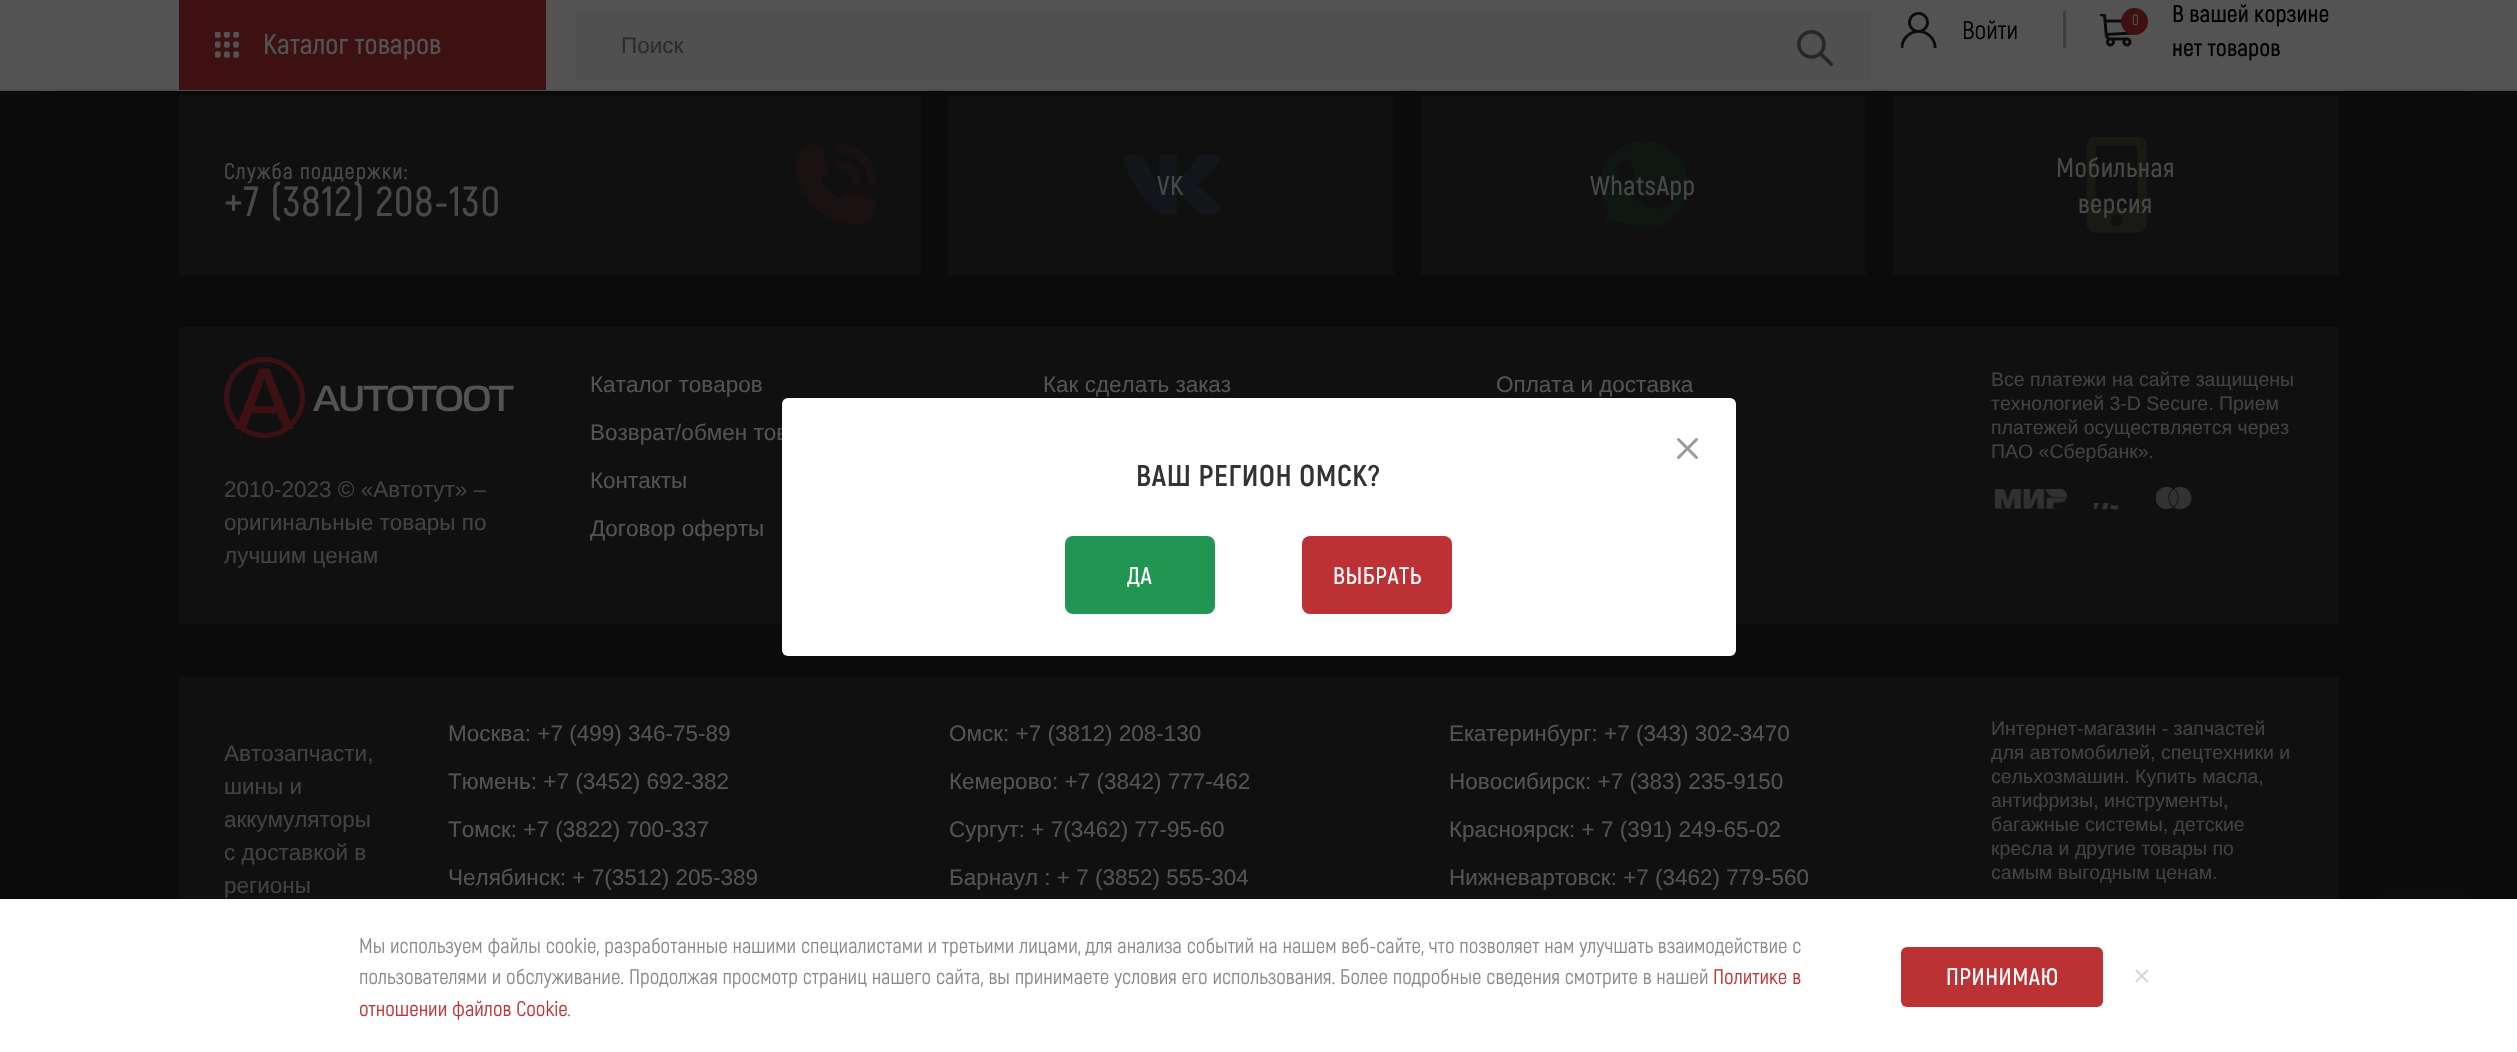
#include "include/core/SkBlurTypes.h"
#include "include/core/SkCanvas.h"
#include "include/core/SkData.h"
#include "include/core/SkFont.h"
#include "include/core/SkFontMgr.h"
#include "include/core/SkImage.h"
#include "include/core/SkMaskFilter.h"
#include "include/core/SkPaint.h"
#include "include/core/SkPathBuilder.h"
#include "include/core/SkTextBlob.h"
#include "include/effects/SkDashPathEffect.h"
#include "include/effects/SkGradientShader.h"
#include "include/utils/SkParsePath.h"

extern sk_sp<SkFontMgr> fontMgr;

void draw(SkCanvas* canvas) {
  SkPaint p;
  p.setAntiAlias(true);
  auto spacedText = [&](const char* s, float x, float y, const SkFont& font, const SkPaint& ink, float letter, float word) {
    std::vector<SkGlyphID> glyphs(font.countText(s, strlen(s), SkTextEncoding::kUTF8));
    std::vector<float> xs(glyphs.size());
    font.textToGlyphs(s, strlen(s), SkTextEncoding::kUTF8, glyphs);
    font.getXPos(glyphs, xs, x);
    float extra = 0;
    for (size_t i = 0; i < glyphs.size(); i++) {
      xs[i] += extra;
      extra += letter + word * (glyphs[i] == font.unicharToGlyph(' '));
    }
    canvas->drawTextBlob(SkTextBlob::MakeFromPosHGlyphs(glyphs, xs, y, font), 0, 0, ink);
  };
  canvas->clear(SkColorSetRGB(11, 11, 11));
  p.setColor(SkColorSetRGB(16, 16, 16));
  canvas->drawRect(SkRect::MakeLTRB(179, 95, 921, 275), p);
  canvas->drawRect(SkRect::MakeLTRB(948, 95, 1394, 275), p);
  canvas->drawRect(SkRect::MakeLTRB(1421, 95, 1866, 275), p);
  canvas->drawRect(SkRect::MakeLTRB(1893, 95, 2339, 275), p);
  p.setColor(SK_ColorBLACK);
  p.setMaskFilter(SkMaskFilter::MakeBlur(kNormal_SkBlurStyle, 15));
  canvas->drawRect(SkRect::MakeLTRB(30, -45, 2487, 75), p);
  p.setMaskFilter(nullptr);
  p.setColor(SkColorSetRGB(83, 83, 83));
  canvas->drawRect(SkRect::MakeLTRB(0, 0, 2517, 89), p);
  p.setColor(SkColorSetRGB(78, 78, 78));
  canvas->drawRect(SkRect::MakeLTRB(0, 89, 2517, 91), p);
  p.setColor(SkColorSetRGB(61, 16, 17));
  canvas->drawRect(SkRect::MakeLTRB(179, 0, 546, 90), p);
  canvas->drawImageRect(SkImages::DeferredFromEncodedData(SkData::MakeFromFileName("images/1.png")), SkRect::MakeLTRB(215, 32, 239, 58), SkSamplingOptions());
  p.setColor(SkColorSetRGB(80, 80, 80));
  canvas->drawRect(SkRect::MakeLTRB(576, 11, 1871, 80), p);
  canvas->drawImageRect(SkImages::DeferredFromEncodedData(SkData::MakeFromFileName("images/2.png")), SkRect::MakeLTRB(1797, 30, 1833, 66), SkSamplingOptions());
  p.setColor(SkColorSetRGB(62, 62, 62));
  canvas->drawRect(SkRect::MakeLTRB(2063, 11, 2066, 48), p);
  canvas->drawImageRect(SkImages::DeferredFromEncodedData(SkData::MakeFromFileName("images/3.png")), SkRect::MakeLTRB(1901, 12, 1937, 48), SkSamplingOptions());
  canvas->drawImageRect(SkImages::DeferredFromEncodedData(SkData::MakeFromFileName("images/4.png")), SkRect::MakeLTRB(2100, 14, 2133, 47), SkSamplingOptions());
  p.setColor(SkColorSetRGB(61, 16, 17));
  canvas->drawCircle(2134.5f, 21.5f, 13.5f, p);
  canvas->drawImageRect(SkImages::DeferredFromEncodedData(SkData::MakeFromFileName("images/5.png")), SkRect::MakeLTRB(795, 144, 876, 225), SkSamplingOptions());
  canvas->drawImageRect(SkImages::DeferredFromEncodedData(SkData::MakeFromFileName("images/6.png")), SkRect::MakeLTRB(1124, 155, 1220, 215), SkSamplingOptions());
  canvas->drawImageRect(SkImages::DeferredFromEncodedData(SkData::MakeFromFileName("images/7.png")), SkRect::MakeLTRB(1600, 141, 1688, 228), SkSamplingOptions());
  canvas->drawImageRect(SkImages::DeferredFromEncodedData(SkData::MakeFromFileName("images/8.png")), SkRect::MakeLTRB(2087, 137, 2147, 233), SkSamplingOptions());
  p.setColor(SkColorSetRGB(16, 16, 16));
  canvas->drawRect(SkRect::MakeLTRB(179, 327, 2339, 624), p);
  canvas->drawImageRect(SkImages::DeferredFromEncodedData(SkData::MakeFromFileName("images/9.png")), SkRect::MakeLTRB(224, 357, 514, 438), SkSamplingOptions());
  canvas->drawImageRect(SkImages::DeferredFromEncodedData(SkData::MakeFromFileName("images/10.png")), SkRect::MakeLTRB(1995, 489, 2067, 509), SkSamplingOptions());
  canvas->drawImageRect(SkImages::DeferredFromEncodedData(SkData::MakeFromFileName("images/11.png")), SkRect::MakeLTRB(2094, 503, 2118, 510), SkSamplingOptions());
  canvas->drawImageRect(SkImages::DeferredFromEncodedData(SkData::MakeFromFileName("images/12.png")), SkRect::MakeLTRB(2156, 486, 2192, 510), SkSamplingOptions());
  canvas->drawRect(SkRect::MakeLTRB(179, 677, 2339, 899), p);
  p.setColor(SkColorSetARGB(77, 0, 136, 204));
  p.setMaskFilter(SkMaskFilter::MakeBlur(kNormal_SkBlurStyle, 15));
  canvas->drawRoundRect(SkRect::MakeLTRB(2376, 918, 2472, 1014), 48, 48, p);
  p.setMaskFilter(nullptr);
  p.setColor(SK_ColorWHITE);
  canvas->drawRect(SkRect::MakeLTRB(0, 899, 2517, 1052), p);
  p.setColor(SkColorSetRGB(188, 49, 52));
  canvas->drawRoundRect(SkRect::MakeLTRB(1901, 947, 2103, 1007), 6, 6, p);
  SkFont font1(fontMgr->matchFamilyStyle("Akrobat", SkFontStyle(600, SkFontStyle::kNormal_Width, SkFontStyle::kUpright_Slant)), 28.5f);
  font1.setSubpixel(true);
  p.setColor(SkColorSetRGB(83, 83, 83));
  canvas->drawString("Каталог товаров", 263, 54, font1, p);
  SkFont font2(fontMgr->matchFamilyStyle("Liberation Sans", SkFontStyle::Normal()), 22.5f);
  font2.setSubpixel(true);
  p.setColor(SkColorSetRGB(44, 44, 44));
  canvas->drawString("Поиск", 621, 53, font2, p);
  SkFont font3(fontMgr->matchFamilyStyle("Akrobat", SkFontStyle::Normal()), 25.5f);
  font3.setSubpixel(true);
  p.setColor(SK_ColorBLACK);
  canvas->drawString("Войти", 1962, 39, font3, p);
  SkFont font4(fontMgr->matchFamilyStyle("Akrobat", SkFontStyle::Normal()), 15);
  font4.setSubpixel(true);
  p.setColor(SkColorSetRGB(83, 83, 83));
  canvas->drawString("0", 2132, 25, font4, p);
  SkFont font5(fontMgr->matchFamilyStyle("Akrobat", SkFontStyle(600, SkFontStyle::kNormal_Width, SkFontStyle::kUpright_Slant)), 24);
  font5.setSubpixel(true);
  p.setColor(SK_ColorBLACK);
  canvas->drawString("В вашей корзине", 2172, 22, font5, p);
  canvas->drawString("нет товаров", 2172, 56, font5, p);
  SkFont font6(fontMgr->matchFamilyStyle("Akrobat", SkFontStyle(600, SkFontStyle::kNormal_Width, SkFontStyle::kUpright_Slant)), 22.5f);
  font6.setSubpixel(true);
  p.setColor(SkColorSetRGB(72, 72, 72));
  spacedText("Служба поддержки:", 224, 179, font6, p, 0.9f, 0);
  SkFont font7(fontMgr->matchFamilyStyle("Akrobat", SkFontStyle(600, SkFontStyle::kNormal_Width, SkFontStyle::kUpright_Slant)), 42);
  font7.setSubpixel(true);
  spacedText("+7 (3812) 208-130", 224, 216, font7, p, 0.9f, 0);
  SkFont font8(fontMgr->matchFamilyStyle("Akrobat", SkFontStyle(600, SkFontStyle::kNormal_Width, SkFontStyle::kUpright_Slant)), 27);
  font8.setSubpixel(true);
  spacedText("VK", 1157, 195, font8, p, 0.5f, 0);
  spacedText("WhatsApp", 1590, 195, font8, p, 0.5f, 0);
  spacedText("Мобильная", 2056, 177, font8, p, 0.5f, 0);
  spacedText("версия", 2078, 213, font8, p, 0.5f, 0);
  p.setColor(SkColorSetRGB(66, 66, 66));
  canvas->drawString("2010-2023 © «Автотут» –", 224, 497, font2, p);
  canvas->drawString("оригинальные товары по", 224, 530, font2, p);
  canvas->drawString("лучшим ценам", 224, 563, font2, p);
  p.setColor(SkColorSetRGB(83, 83, 83));
  canvas->drawString("Каталог товаров", 590, 392, font2, p);
  canvas->drawString("Как сделать заказ", 1043, 392, font2, p);
  canvas->drawString("Оплата и доставка", 1496, 392, font2, p);
  canvas->drawString("Возврат/обмен тов", 590, 440, font2, p);
  canvas->drawString("Контакты", 590, 488, font2, p);
  canvas->drawString("Договор оферты", 590, 536, font2, p);
  SkFont font9(fontMgr->matchFamilyStyle("Liberation Sans", SkFontStyle::Normal()), 19.5f);
  font9.setSubpixel(true);
  p.setColor(SkColorSetRGB(66, 66, 66));
  canvas->drawString("Все платежи на сайте защищены", 1991, 386, font9, p);
  canvas->drawString("технологией 3-D Secure. Прием", 1991, 410, font9, p);
  canvas->drawString("платежей осуществляется через", 1991, 434, font9, p);
  canvas->drawString("ПАО «Сбербанк».", 1991, 458, font9, p);
  canvas->drawString("Автозапчасти,", 224, 761, font2, p);
  canvas->drawString("шины и", 224, 794, font2, p);
  canvas->drawString("аккумуляторы", 224, 827, font2, p);
  canvas->drawString("с доставкой в", 224, 860, font2, p);
  canvas->drawString("регионы", 224, 893, font2, p);
  p.setColor(SkColorSetRGB(83, 83, 83));
  canvas->drawString("Москва: +7 (499) 346-75-89", 448, 741, font2, p);
  canvas->drawString("Омск: +7 (3812) 208-130", 949, 741, font2, p);
  canvas->drawString("Екатеринбург: +7 (343) 302-3470", 1449, 741, font2, p);
  canvas->drawString("Тюмень: +7 (3452) 692-382", 448, 789, font2, p);
  canvas->drawString("Кемерово: +7 (3842) 777-462", 949, 789, font2, p);
  canvas->drawString("Новосибирск: +7 (383) 235-9150", 1449, 789, font2, p);
  canvas->drawString("Томск: +7 (3822) 700-337", 448, 837, font2, p);
  canvas->drawString("Сургут: + 7(3462) 77-95-60", 949, 837, font2, p);
  canvas->drawString("Красноярск: + 7 (391) 249-65-02", 1449, 837, font2, p);
  canvas->drawString("Челябинск: + 7(3512) 205-389", 448, 885, font2, p);
  canvas->drawString("Барнаул : + 7 (3852) 555-304", 949, 885, font2, p);
  canvas->drawString("Нижневартовск: +7 (3462) 779-560", 1449, 885, font2, p);
  p.setColor(SkColorSetRGB(66, 66, 66));
  canvas->drawString("Интернет-магазин - запчастей", 1991, 735, font9, p);
  canvas->drawString("для автомобилей, спецтехники и", 1991, 759, font9, p);
  canvas->drawString("сельхозмашин. Купить масла,", 1991, 783, font9, p);
  canvas->drawString("антифризы, инструменты,", 1991, 807, font9, p);
  canvas->drawString("багажные системы, детские", 1991, 831, font9, p);
  canvas->drawString("кресла и другие товары по", 1991, 855, font9, p);
  canvas->drawString("самым выгодным ценам.", 1991, 879, font9, p);
  p.setColor(SK_ColorWHITE);
  canvas->drawRoundRect(SkRect::MakeLTRB(782, 398, 1736, 656), 6, 6, p);
  p.setStyle(SkPaint::kStroke_Style);
  p.setStrokeWidth(3);
  p.setStrokeCap(SkPaint::kRound_Cap);
  p.setColor(SkColorSetRGB(153, 153, 153));
  canvas->drawPath(SkPathBuilder().moveTo(1696.5f, 439.5f).lineTo(1678.5f, 457.5f).moveTo(1678.5f, 439.5f).lineTo(1696.5f, 457.5f).detach(), p);
  SkFont font10(fontMgr->matchFamilyStyle("Akrobat", SkFontStyle::Bold()), 30);
  font10.setSubpixel(true);
  p.setStyle(SkPaint::kFill_Style);
  p.setColor(SkColorSetRGB(51, 51, 51));
  spacedText("ВАШ РЕГИОН ОМСК?", 1136, 486, font10, p, 0.6f, 0);
  p.setColor(SkColorSetRGB(33, 150, 83));
  canvas->drawRoundRect(SkRect::MakeLTRB(1065, 536, 1215, 614), 8, 8, p);
  p.setColor(SK_ColorWHITE);
  spacedText("ДА", 1127, 584, font5, p, 0.5f, 0);
  p.setColor(SkColorSetRGB(188, 49, 52));
  canvas->drawRoundRect(SkRect::MakeLTRB(1302, 536, 1452, 614), 8, 8, p);
  p.setColor(SK_ColorWHITE);
  spacedText("ВЫБРАТЬ", 1333, 584, font5, p, 0.5f, 0);
  SkFont font11(fontMgr->matchFamilyStyle("Akrobat", SkFontStyle::Normal()), 21);
  font11.setSubpixel(true);
  p.setColor(SkColorSetRGB(136, 136, 136));
  canvas->drawString("Мы используем файлы cookie, разработанные нашими специалистами и третьими лицами, для анализа событий на нашем веб-сайте, что позволяет нам улучшать взаимодействие с", 359, 953, font11, p);
  canvas->drawString("пользователями и обслуживание. Продолжая просмотр страниц нашего сайта, вы принимаете условия его использования. Более подробные сведения смотрите в нашей", 359, 984, font11, p);
  p.setColor(SkColorSetRGB(188, 49, 52));
  canvas->drawString("Политике в", 1713, 984, font11, p);
  canvas->drawString("отношении файлов Cookie", 359, 1016, font11, p);
  p.setColor(SkColorSetRGB(136, 136, 136));
  canvas->drawString(".", 567, 1016, font11, p);
  p.setColor(SK_ColorWHITE);
  spacedText("ПРИНИМАЮ", 1946, 985, font5, p, 0.5f, 0);
  SkFont font12(fontMgr->matchFamilyStyle("Liberation Sans", SkFontStyle::Normal()), 30);
  font12.setSubpixel(true);
  p.setColor(SkColorSetRGB(217, 217, 217));
  canvas->drawString("×", 2133, 986, font12, p);
}
